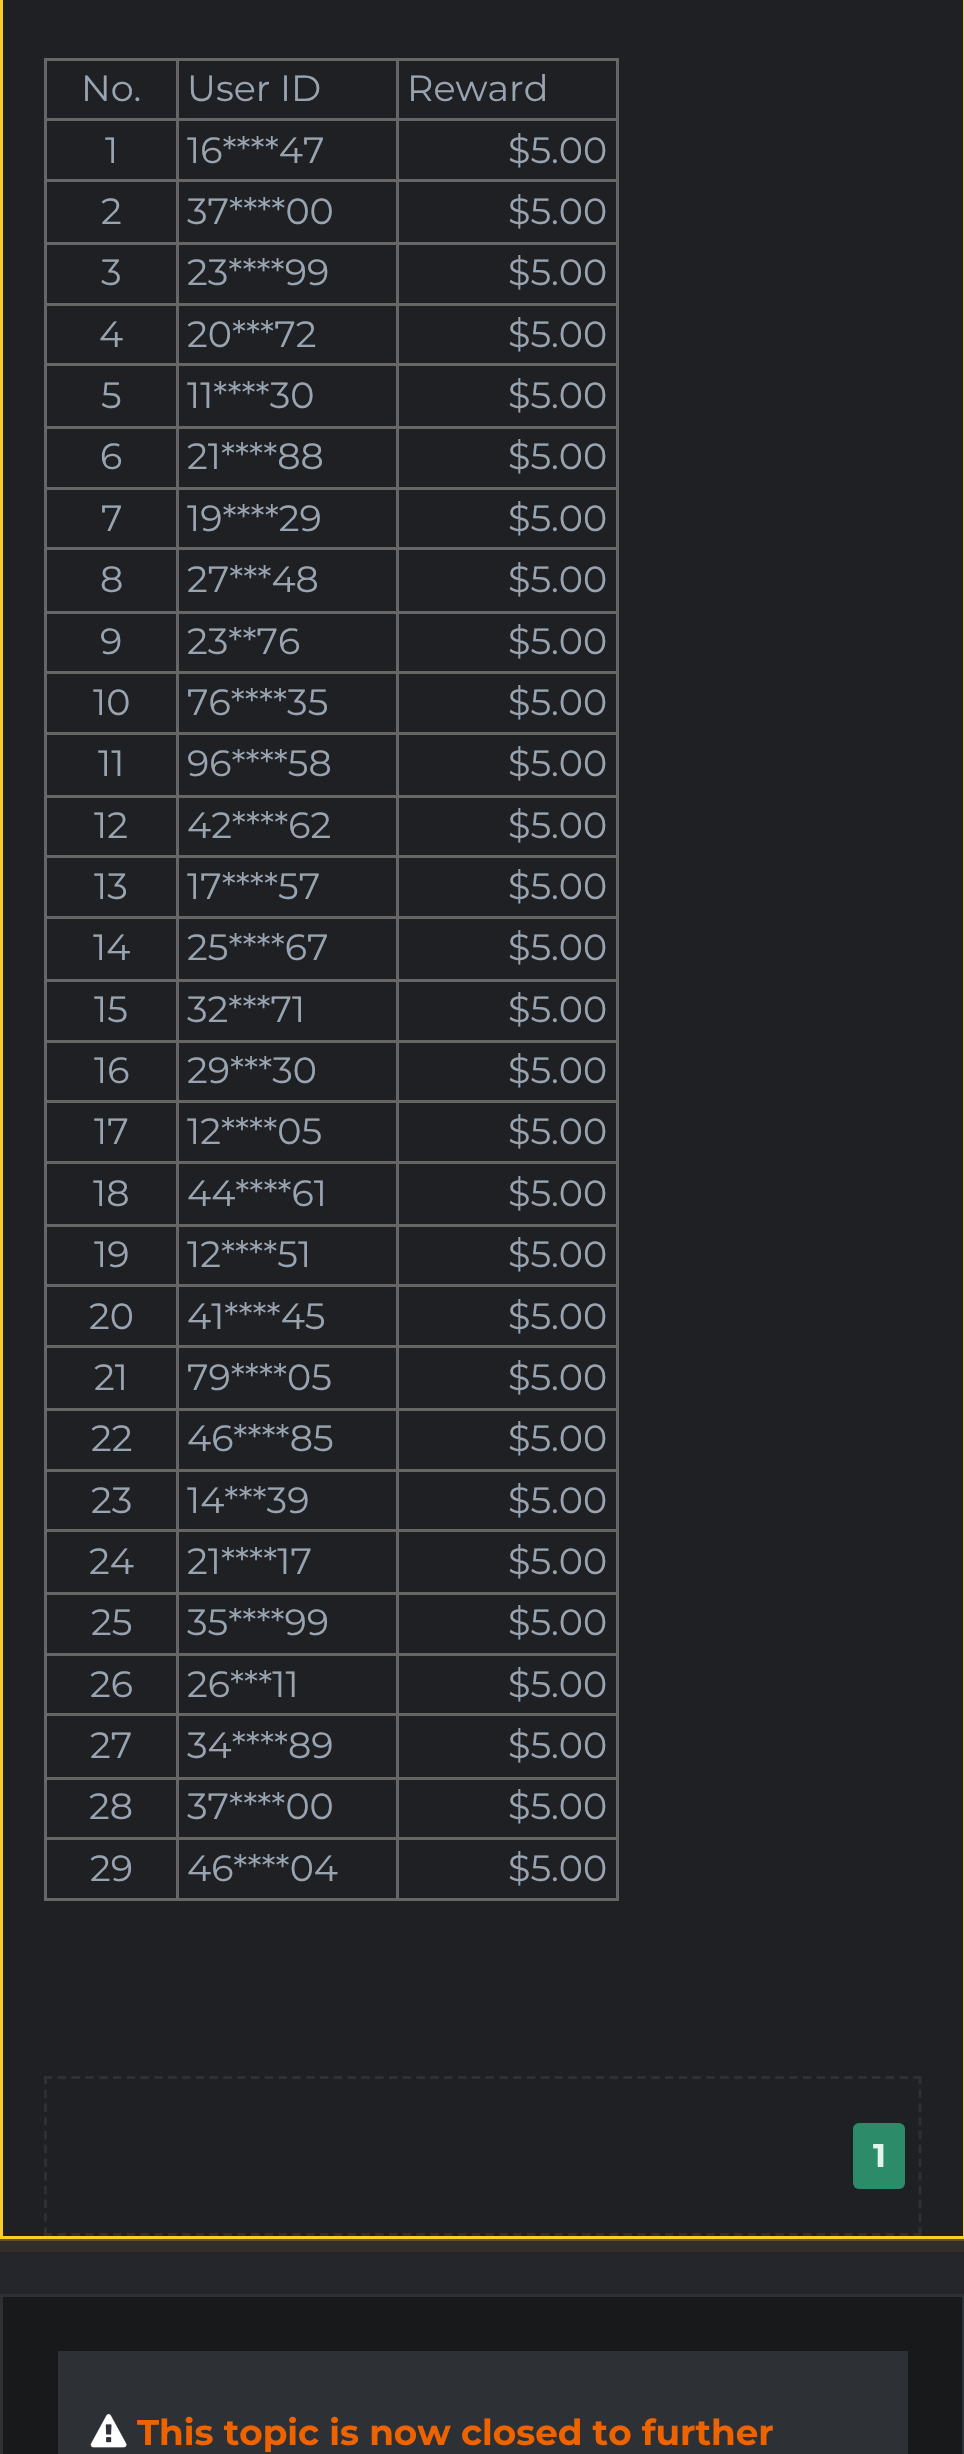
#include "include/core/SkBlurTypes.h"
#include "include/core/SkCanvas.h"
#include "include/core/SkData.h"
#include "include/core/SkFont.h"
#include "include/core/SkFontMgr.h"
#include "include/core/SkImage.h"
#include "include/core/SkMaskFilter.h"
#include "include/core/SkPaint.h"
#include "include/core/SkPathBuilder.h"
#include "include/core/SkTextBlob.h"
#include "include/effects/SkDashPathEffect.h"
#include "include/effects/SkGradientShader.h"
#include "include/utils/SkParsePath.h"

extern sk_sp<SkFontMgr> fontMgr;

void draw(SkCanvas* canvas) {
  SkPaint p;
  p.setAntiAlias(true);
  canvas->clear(SkColorSetRGB(36, 38, 43));
  p.setStyle(SkPaint::kStroke_Style);
  p.setStrokeWidth(14);
  p.setColor(SkColorSetRGB(50, 47, 43));
  canvas->drawRect(SkRect::MakeLTRB(-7, -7, 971, 2245), p);
  p.setStrokeWidth(3);
  p.setColor(SkColorSetRGB(97, 78, 45));
  canvas->drawRect(SkRect::MakeLTRB(-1.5f, -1.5f, 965.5f, 2239.5f), p);
  p.setColor(SkColorSetRGB(247, 207, 39));
  canvas->drawRect(SkRect::MakeLTRB(1.5f, -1.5f, 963.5f, 2237.5f), p);
  p.setStyle(SkPaint::kFill_Style);
  p.setColor(SkColorSetRGB(30, 32, 36));
  canvas->drawRect(SkRect::MakeLTRB(3, 0, 963, 2236), p);
  p.setColor(SkColorSetRGB(102, 102, 102));
  canvas->drawRect(SkRect::MakeLTRB(44, 58, 619, 61), p);
  canvas->drawRect(SkRect::MakeLTRB(616, 118, 619, 1900), p);
  canvas->drawRect(SkRect::MakeLTRB(616, 58, 619, 121), p);
  canvas->drawRect(SkRect::MakeLTRB(396, 1898, 619, 1901), p);
  canvas->drawRect(SkRect::MakeLTRB(396, 1837, 399, 1900), p);
  canvas->drawRect(SkRect::MakeLTRB(396, 1837, 619, 1840), p);
  canvas->drawRect(SkRect::MakeLTRB(396, 1777, 399, 1840), p);
  canvas->drawRect(SkRect::MakeLTRB(396, 1777, 619, 1780), p);
  canvas->drawRect(SkRect::MakeLTRB(396, 1713, 399, 1779), p);
  canvas->drawRect(SkRect::MakeLTRB(396, 1713, 619, 1716), p);
  canvas->drawRect(SkRect::MakeLTRB(396, 1653, 399, 1716), p);
  canvas->drawRect(SkRect::MakeLTRB(396, 1653, 619, 1656), p);
  canvas->drawRect(SkRect::MakeLTRB(396, 1592, 399, 1656), p);
  canvas->drawRect(SkRect::MakeLTRB(396, 1592, 619, 1595), p);
  canvas->drawRect(SkRect::MakeLTRB(396, 1529, 399, 1595), p);
  canvas->drawRect(SkRect::MakeLTRB(396, 1529, 619, 1532), p);
  canvas->drawRect(SkRect::MakeLTRB(396, 1469, 399, 1532), p);
  canvas->drawRect(SkRect::MakeLTRB(396, 1469, 619, 1472), p);
  canvas->drawRect(SkRect::MakeLTRB(396, 1408, 399, 1471), p);
  canvas->drawRect(SkRect::MakeLTRB(396, 1408, 619, 1411), p);
  canvas->drawRect(SkRect::MakeLTRB(396, 1345, 399, 1411), p);
  canvas->drawRect(SkRect::MakeLTRB(396, 1345, 619, 1348), p);
  canvas->drawRect(SkRect::MakeLTRB(396, 1284, 399, 1348), p);
  canvas->drawRect(SkRect::MakeLTRB(396, 1284, 619, 1287), p);
  canvas->drawRect(SkRect::MakeLTRB(396, 1224, 399, 1287), p);
  canvas->drawRect(SkRect::MakeLTRB(396, 1224, 619, 1227), p);
  canvas->drawRect(SkRect::MakeLTRB(396, 1161, 399, 1227), p);
  canvas->drawRect(SkRect::MakeLTRB(396, 1161, 619, 1164), p);
  canvas->drawRect(SkRect::MakeLTRB(396, 1100, 399, 1163), p);
  canvas->drawRect(SkRect::MakeLTRB(396, 1100, 619, 1103), p);
  canvas->drawRect(SkRect::MakeLTRB(396, 1040, 399, 1103), p);
  canvas->drawRect(SkRect::MakeLTRB(396, 1040, 619, 1043), p);
  canvas->drawRect(SkRect::MakeLTRB(396, 979, 399, 1042), p);
  canvas->drawRect(SkRect::MakeLTRB(396, 979, 619, 982), p);
  canvas->drawRect(SkRect::MakeLTRB(396, 916, 399, 982), p);
  canvas->drawRect(SkRect::MakeLTRB(396, 916, 619, 919), p);
  canvas->drawRect(SkRect::MakeLTRB(396, 855, 399, 919), p);
  canvas->drawRect(SkRect::MakeLTRB(396, 855, 619, 858), p);
  canvas->drawRect(SkRect::MakeLTRB(396, 795, 399, 858), p);
  canvas->drawRect(SkRect::MakeLTRB(396, 795, 619, 798), p);
  canvas->drawRect(SkRect::MakeLTRB(396, 732, 399, 798), p);
  canvas->drawRect(SkRect::MakeLTRB(396, 732, 619, 735), p);
  canvas->drawRect(SkRect::MakeLTRB(396, 671, 399, 734), p);
  canvas->drawRect(SkRect::MakeLTRB(396, 671, 619, 674), p);
  canvas->drawRect(SkRect::MakeLTRB(396, 611, 399, 674), p);
  canvas->drawRect(SkRect::MakeLTRB(396, 611, 619, 614), p);
  canvas->drawRect(SkRect::MakeLTRB(396, 547, 399, 613), p);
  canvas->drawRect(SkRect::MakeLTRB(396, 547, 619, 550), p);
  canvas->drawRect(SkRect::MakeLTRB(396, 487, 399, 550), p);
  canvas->drawRect(SkRect::MakeLTRB(396, 487, 619, 490), p);
  canvas->drawRect(SkRect::MakeLTRB(396, 426, 399, 490), p);
  canvas->drawRect(SkRect::MakeLTRB(396, 426, 619, 429), p);
  canvas->drawRect(SkRect::MakeLTRB(396, 363, 399, 429), p);
  canvas->drawRect(SkRect::MakeLTRB(396, 363, 619, 366), p);
  canvas->drawRect(SkRect::MakeLTRB(396, 303, 399, 366), p);
  canvas->drawRect(SkRect::MakeLTRB(396, 303, 619, 306), p);
  canvas->drawRect(SkRect::MakeLTRB(396, 242, 399, 305), p);
  canvas->drawRect(SkRect::MakeLTRB(396, 242, 619, 245), p);
  canvas->drawRect(SkRect::MakeLTRB(396, 179, 399, 245), p);
  canvas->drawRect(SkRect::MakeLTRB(396, 179, 619, 182), p);
  canvas->drawRect(SkRect::MakeLTRB(396, 118, 399, 182), p);
  canvas->drawRect(SkRect::MakeLTRB(396, 118, 619, 121), p);
  canvas->drawRect(SkRect::MakeLTRB(396, 58, 399, 121), p);
  canvas->drawRect(SkRect::MakeLTRB(176, 1898, 399, 1901), p);
  canvas->drawRect(SkRect::MakeLTRB(176, 1837, 179, 1900), p);
  canvas->drawRect(SkRect::MakeLTRB(176, 1837, 399, 1840), p);
  canvas->drawRect(SkRect::MakeLTRB(176, 1777, 179, 1840), p);
  canvas->drawRect(SkRect::MakeLTRB(176, 1777, 399, 1780), p);
  canvas->drawRect(SkRect::MakeLTRB(176, 1713, 179, 1779), p);
  canvas->drawRect(SkRect::MakeLTRB(176, 1713, 399, 1716), p);
  canvas->drawRect(SkRect::MakeLTRB(176, 1653, 179, 1716), p);
  canvas->drawRect(SkRect::MakeLTRB(176, 1653, 399, 1656), p);
  canvas->drawRect(SkRect::MakeLTRB(176, 1592, 179, 1656), p);
  canvas->drawRect(SkRect::MakeLTRB(176, 1592, 399, 1595), p);
  canvas->drawRect(SkRect::MakeLTRB(176, 1529, 179, 1595), p);
  canvas->drawRect(SkRect::MakeLTRB(176, 1529, 399, 1532), p);
  canvas->drawRect(SkRect::MakeLTRB(176, 1469, 179, 1532), p);
  canvas->drawRect(SkRect::MakeLTRB(176, 1469, 399, 1472), p);
  canvas->drawRect(SkRect::MakeLTRB(176, 1408, 179, 1471), p);
  canvas->drawRect(SkRect::MakeLTRB(176, 1408, 399, 1411), p);
  canvas->drawRect(SkRect::MakeLTRB(176, 1345, 179, 1411), p);
  canvas->drawRect(SkRect::MakeLTRB(176, 1345, 399, 1348), p);
  canvas->drawRect(SkRect::MakeLTRB(176, 1284, 179, 1348), p);
  canvas->drawRect(SkRect::MakeLTRB(176, 1284, 399, 1287), p);
  canvas->drawRect(SkRect::MakeLTRB(176, 1224, 179, 1287), p);
  canvas->drawRect(SkRect::MakeLTRB(176, 1224, 399, 1227), p);
  canvas->drawRect(SkRect::MakeLTRB(176, 1161, 179, 1227), p);
  canvas->drawRect(SkRect::MakeLTRB(176, 1161, 399, 1164), p);
  canvas->drawRect(SkRect::MakeLTRB(176, 1100, 179, 1163), p);
  canvas->drawRect(SkRect::MakeLTRB(176, 1100, 399, 1103), p);
  canvas->drawRect(SkRect::MakeLTRB(176, 1040, 179, 1103), p);
  canvas->drawRect(SkRect::MakeLTRB(176, 1040, 399, 1043), p);
  canvas->drawRect(SkRect::MakeLTRB(176, 979, 179, 1042), p);
  canvas->drawRect(SkRect::MakeLTRB(176, 979, 399, 982), p);
  canvas->drawRect(SkRect::MakeLTRB(176, 916, 179, 982), p);
  canvas->drawRect(SkRect::MakeLTRB(176, 916, 399, 919), p);
  canvas->drawRect(SkRect::MakeLTRB(176, 855, 179, 919), p);
  canvas->drawRect(SkRect::MakeLTRB(176, 855, 399, 858), p);
  canvas->drawRect(SkRect::MakeLTRB(176, 795, 179, 858), p);
  canvas->drawRect(SkRect::MakeLTRB(176, 795, 399, 798), p);
  canvas->drawRect(SkRect::MakeLTRB(176, 732, 179, 798), p);
  canvas->drawRect(SkRect::MakeLTRB(176, 732, 399, 735), p);
  canvas->drawRect(SkRect::MakeLTRB(176, 671, 179, 734), p);
  canvas->drawRect(SkRect::MakeLTRB(176, 671, 399, 674), p);
  canvas->drawRect(SkRect::MakeLTRB(176, 611, 179, 674), p);
  canvas->drawRect(SkRect::MakeLTRB(176, 611, 399, 614), p);
  canvas->drawRect(SkRect::MakeLTRB(176, 547, 179, 613), p);
  canvas->drawRect(SkRect::MakeLTRB(176, 547, 399, 550), p);
  canvas->drawRect(SkRect::MakeLTRB(176, 487, 179, 550), p);
  canvas->drawRect(SkRect::MakeLTRB(176, 487, 399, 490), p);
  canvas->drawRect(SkRect::MakeLTRB(176, 426, 179, 490), p);
  canvas->drawRect(SkRect::MakeLTRB(176, 426, 399, 429), p);
  canvas->drawRect(SkRect::MakeLTRB(176, 363, 179, 429), p);
  canvas->drawRect(SkRect::MakeLTRB(176, 363, 399, 366), p);
  canvas->drawRect(SkRect::MakeLTRB(176, 303, 179, 366), p);
  canvas->drawRect(SkRect::MakeLTRB(176, 303, 399, 306), p);
  canvas->drawRect(SkRect::MakeLTRB(176, 242, 179, 305), p);
  canvas->drawRect(SkRect::MakeLTRB(176, 242, 399, 245), p);
  canvas->drawRect(SkRect::MakeLTRB(176, 179, 179, 245), p);
  canvas->drawRect(SkRect::MakeLTRB(176, 179, 399, 182), p);
  canvas->drawRect(SkRect::MakeLTRB(176, 118, 179, 182), p);
  canvas->drawRect(SkRect::MakeLTRB(176, 118, 399, 121), p);
  canvas->drawRect(SkRect::MakeLTRB(176, 58, 179, 121), p);
  canvas->drawRect(SkRect::MakeLTRB(44, 1898, 179, 1901), p);
  canvas->drawRect(SkRect::MakeLTRB(44, 1837, 47, 1900), p);
  canvas->drawRect(SkRect::MakeLTRB(44, 1837, 179, 1840), p);
  canvas->drawRect(SkRect::MakeLTRB(44, 1777, 47, 1840), p);
  canvas->drawRect(SkRect::MakeLTRB(44, 1777, 179, 1780), p);
  canvas->drawRect(SkRect::MakeLTRB(44, 1713, 47, 1779), p);
  canvas->drawRect(SkRect::MakeLTRB(44, 1713, 179, 1716), p);
  canvas->drawRect(SkRect::MakeLTRB(44, 1653, 47, 1716), p);
  canvas->drawRect(SkRect::MakeLTRB(44, 1653, 179, 1656), p);
  canvas->drawRect(SkRect::MakeLTRB(44, 1592, 47, 1656), p);
  canvas->drawRect(SkRect::MakeLTRB(44, 1592, 179, 1595), p);
  canvas->drawRect(SkRect::MakeLTRB(44, 1529, 47, 1595), p);
  canvas->drawRect(SkRect::MakeLTRB(44, 1529, 179, 1532), p);
  canvas->drawRect(SkRect::MakeLTRB(44, 1469, 47, 1532), p);
  canvas->drawRect(SkRect::MakeLTRB(44, 1469, 179, 1472), p);
  canvas->drawRect(SkRect::MakeLTRB(44, 1408, 47, 1471), p);
  canvas->drawRect(SkRect::MakeLTRB(44, 1408, 179, 1411), p);
  canvas->drawRect(SkRect::MakeLTRB(44, 1345, 47, 1411), p);
  canvas->drawRect(SkRect::MakeLTRB(44, 1345, 179, 1348), p);
  canvas->drawRect(SkRect::MakeLTRB(44, 1284, 47, 1348), p);
  canvas->drawRect(SkRect::MakeLTRB(44, 1284, 179, 1287), p);
  canvas->drawRect(SkRect::MakeLTRB(44, 1224, 47, 1287), p);
  canvas->drawRect(SkRect::MakeLTRB(44, 1224, 179, 1227), p);
  canvas->drawRect(SkRect::MakeLTRB(44, 1161, 47, 1227), p);
  canvas->drawRect(SkRect::MakeLTRB(44, 1161, 179, 1164), p);
  canvas->drawRect(SkRect::MakeLTRB(44, 1100, 47, 1163), p);
  canvas->drawRect(SkRect::MakeLTRB(44, 1100, 179, 1103), p);
  canvas->drawRect(SkRect::MakeLTRB(44, 1040, 47, 1103), p);
  canvas->drawRect(SkRect::MakeLTRB(44, 1040, 179, 1043), p);
  canvas->drawRect(SkRect::MakeLTRB(44, 979, 47, 1042), p);
  canvas->drawRect(SkRect::MakeLTRB(44, 979, 179, 982), p);
  canvas->drawRect(SkRect::MakeLTRB(44, 916, 47, 982), p);
  canvas->drawRect(SkRect::MakeLTRB(44, 916, 179, 919), p);
  canvas->drawRect(SkRect::MakeLTRB(44, 855, 47, 919), p);
  canvas->drawRect(SkRect::MakeLTRB(44, 855, 179, 858), p);
  canvas->drawRect(SkRect::MakeLTRB(44, 795, 47, 858), p);
  canvas->drawRect(SkRect::MakeLTRB(44, 795, 179, 798), p);
  canvas->drawRect(SkRect::MakeLTRB(44, 732, 47, 798), p);
  canvas->drawRect(SkRect::MakeLTRB(44, 732, 179, 735), p);
  canvas->drawRect(SkRect::MakeLTRB(44, 671, 47, 734), p);
  canvas->drawRect(SkRect::MakeLTRB(44, 671, 179, 674), p);
  canvas->drawRect(SkRect::MakeLTRB(44, 611, 47, 674), p);
  canvas->drawRect(SkRect::MakeLTRB(44, 611, 179, 614), p);
  canvas->drawRect(SkRect::MakeLTRB(44, 547, 47, 613), p);
  canvas->drawRect(SkRect::MakeLTRB(44, 547, 179, 550), p);
  canvas->drawRect(SkRect::MakeLTRB(44, 487, 47, 550), p);
  canvas->drawRect(SkRect::MakeLTRB(44, 487, 179, 490), p);
  canvas->drawRect(SkRect::MakeLTRB(44, 426, 47, 490), p);
  canvas->drawRect(SkRect::MakeLTRB(44, 426, 179, 429), p);
  canvas->drawRect(SkRect::MakeLTRB(44, 363, 47, 429), p);
  canvas->drawRect(SkRect::MakeLTRB(44, 363, 179, 366), p);
  canvas->drawRect(SkRect::MakeLTRB(44, 303, 47, 366), p);
  canvas->drawRect(SkRect::MakeLTRB(44, 303, 179, 306), p);
  canvas->drawRect(SkRect::MakeLTRB(44, 242, 47, 305), p);
  canvas->drawRect(SkRect::MakeLTRB(44, 242, 179, 245), p);
  canvas->drawRect(SkRect::MakeLTRB(44, 179, 47, 245), p);
  canvas->drawRect(SkRect::MakeLTRB(44, 179, 179, 182), p);
  canvas->drawRect(SkRect::MakeLTRB(44, 118, 47, 182), p);
  canvas->drawRect(SkRect::MakeLTRB(44, 118, 179, 121), p);
  canvas->drawRect(SkRect::MakeLTRB(44, 58, 47, 121), p);
  p.setStyle(SkPaint::kStroke_Style);
  p.setStrokeWidth(2.8f);
  p.setColor(SkColorSetRGB(45, 48, 53));
  p.setPathEffect(SkDashPathEffect::Make({{8.25f, 5.55f}}, 0));
  canvas->drawPath(SkPathBuilder().moveTo(44, 2077.5f).lineTo(921, 2077.5f).detach(), p);
  p.setPathEffect(nullptr);
  p.setPathEffect(SkDashPathEffect::Make({{8.25f, 5.5f}}, 0));
  canvas->drawPath(SkPathBuilder().moveTo(920, 2076).lineTo(920, 2236).detach(), p);
  p.setPathEffect(nullptr);
  p.setPathEffect(SkDashPathEffect::Make({{8.25f, 5.55f}}, 0));
  canvas->drawPath(SkPathBuilder().moveTo(44, 2234.5f).lineTo(921, 2234.5f).detach(), p);
  p.setPathEffect(nullptr);
  p.setPathEffect(SkDashPathEffect::Make({{8.25f, 5.5f}}, 0));
  canvas->drawPath(SkPathBuilder().moveTo(45.5f, 2076).lineTo(45.5f, 2236).detach(), p);
  p.setPathEffect(nullptr);
  p.setStyle(SkPaint::kFill_Style);
  p.setColor(SkColorSetRGB(44, 140, 105));
  canvas->drawRoundRect(SkRect::MakeLTRB(853, 2123, 905, 2189), 6, 6, p);
  p.setColor(SkColorSetRGB(23, 25, 27));
  canvas->drawRect(SkRect::MakeLTRB(1.5f, 2295.5f, 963.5f, 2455.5f), p);
  p.setStyle(SkPaint::kStroke_Style);
  p.setStrokeWidth(3);
  p.setColor(SkColorSetRGB(45, 48, 53));
  canvas->drawRect(SkRect::MakeLTRB(1.5f, 2295.5f, 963.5f, 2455.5f), p);
  p.setStyle(SkPaint::kFill_Style);
  canvas->drawRect(SkRect::MakeLTRB(58, 2351, 908, 2454), p);
  canvas->drawImageRect(SkImages::DeferredFromEncodedData(SkData::MakeFromFileName("images/1.png")), SkRect::MakeLTRB(90, 2414, 127, 2448), SkSamplingOptions());
  SkFont font1(fontMgr->matchFamilyStyle("Montserrat", SkFontStyle::Normal()), 36.5f);
  font1.setSubpixel(true);
  p.setColor(SkColorSetRGB(153, 164, 176));
  canvas->drawString("No.", 81, 101, font1, p);
  canvas->drawString("User ID", 187, 101, font1, p);
  canvas->drawString("Reward", 407, 101, font1, p);
  canvas->drawString("1", 105, 163, font1, p);
  canvas->drawString("16****47", 187, 163, font1, p);
  canvas->drawString("$5.00", 508, 163, font1, p);
  canvas->drawString("2", 101, 224, font1, p);
  canvas->drawString("37****00", 187, 224, font1, p);
  canvas->drawString("$5.00", 508, 224, font1, p);
  canvas->drawString("3", 101, 285, font1, p);
  canvas->drawString("23****99", 187, 285, font1, p);
  canvas->drawString("$5.00", 508, 285, font1, p);
  canvas->drawString("4", 99, 347, font1, p);
  canvas->drawString("20***72", 187, 347, font1, p);
  canvas->drawString("$5.00", 508, 347, font1, p);
  canvas->drawString("5", 101, 408, font1, p);
  canvas->drawString("11****30", 187, 408, font1, p);
  canvas->drawString("$5.00", 508, 408, font1, p);
  canvas->drawString("6", 100, 469, font1, p);
  canvas->drawString("21****88", 187, 469, font1, p);
  canvas->drawString("$5.00", 508, 469, font1, p);
  canvas->drawString("7", 101, 531, font1, p);
  canvas->drawString("19****29", 187, 531, font1, p);
  canvas->drawString("$5.00", 508, 531, font1, p);
  canvas->drawString("8", 100, 592, font1, p);
  canvas->drawString("27***48", 187, 592, font1, p);
  canvas->drawString("$5.00", 508, 592, font1, p);
  canvas->drawString("9", 100, 654, font1, p);
  canvas->drawString("23**76", 187, 654, font1, p);
  canvas->drawString("$5.00", 508, 654, font1, p);
  canvas->drawString("10", 93, 715, font1, p);
  canvas->drawString("76****35", 187, 715, font1, p);
  canvas->drawString("$5.00", 508, 715, font1, p);
  canvas->drawString("11", 98, 776, font1, p);
  canvas->drawString("96****58", 187, 776, font1, p);
  canvas->drawString("$5.00", 508, 776, font1, p);
  canvas->drawString("12", 94, 838, font1, p);
  canvas->drawString("42****62", 187, 838, font1, p);
  canvas->drawString("$5.00", 508, 838, font1, p);
  canvas->drawString("13", 94, 899, font1, p);
  canvas->drawString("17****57", 187, 899, font1, p);
  canvas->drawString("$5.00", 508, 899, font1, p);
  canvas->drawString("14", 93, 960, font1, p);
  canvas->drawString("25****67", 187, 960, font1, p);
  canvas->drawString("$5.00", 508, 960, font1, p);
  canvas->drawString("15", 94, 1022, font1, p);
  canvas->drawString("32***71", 187, 1022, font1, p);
  canvas->drawString("$5.00", 508, 1022, font1, p);
  canvas->drawString("16", 94, 1083, font1, p);
  canvas->drawString("29***30", 187, 1083, font1, p);
  canvas->drawString("$5.00", 508, 1083, font1, p);
  canvas->drawString("17", 94, 1144, font1, p);
  canvas->drawString("12****05", 187, 1144, font1, p);
  canvas->drawString("$5.00", 508, 1144, font1, p);
  canvas->drawString("18", 93, 1206, font1, p);
  canvas->drawString("44****61", 187, 1206, font1, p);
  canvas->drawString("$5.00", 508, 1206, font1, p);
  canvas->drawString("19", 94, 1267, font1, p);
  canvas->drawString("12****51", 187, 1267, font1, p);
  canvas->drawString("$5.00", 508, 1267, font1, p);
  canvas->drawString("20", 89, 1329, font1, p);
  canvas->drawString("41****45", 187, 1329, font1, p);
  canvas->drawString("$5.00", 508, 1329, font1, p);
  canvas->drawString("21", 94, 1390, font1, p);
  canvas->drawString("79****05", 187, 1390, font1, p);
  canvas->drawString("$5.00", 508, 1390, font1, p);
  canvas->drawString("22", 91, 1451, font1, p);
  canvas->drawString("46****85", 187, 1451, font1, p);
  canvas->drawString("$5.00", 508, 1451, font1, p);
  canvas->drawString("23", 91, 1513, font1, p);
  canvas->drawString("14***39", 187, 1513, font1, p);
  canvas->drawString("$5.00", 508, 1513, font1, p);
  canvas->drawString("24", 89, 1574, font1, p);
  canvas->drawString("21****17", 187, 1574, font1, p);
  canvas->drawString("$5.00", 508, 1574, font1, p);
  canvas->drawString("25", 91, 1635, font1, p);
  canvas->drawString("35****99", 187, 1635, font1, p);
  canvas->drawString("$5.00", 508, 1635, font1, p);
  canvas->drawString("26", 90, 1697, font1, p);
  canvas->drawString("26***11", 187, 1697, font1, p);
  canvas->drawString("$5.00", 508, 1697, font1, p);
  canvas->drawString("27", 90, 1758, font1, p);
  canvas->drawString("34****89", 187, 1758, font1, p);
  canvas->drawString("$5.00", 508, 1758, font1, p);
  canvas->drawString("28", 89, 1819, font1, p);
  canvas->drawString("37****00", 187, 1819, font1, p);
  canvas->drawString("$5.00", 508, 1819, font1, p);
  canvas->drawString("29", 90, 1881, font1, p);
  canvas->drawString("46****04", 187, 1881, font1, p);
  canvas->drawString("$5.00", 508, 1881, font1, p);
  SkFont font2(fontMgr->matchFamilyStyle("Montserrat", SkFontStyle::Bold()), 33);
  font2.setSubpixel(true);
  p.setColor(SkColorSetRGB(227, 243, 236));
  canvas->drawString("1", 873, 2167, font2, p);
  SkFont font3(fontMgr->matchFamilyStyle("Montserrat", SkFontStyle::Bold()), 35.75f);
  font3.setSubpixel(true);
  p.setColor(SkColorSetRGB(237, 99, 0));
  canvas->drawString("This topic is now closed to further", 137, 2445, font3, p);
}
